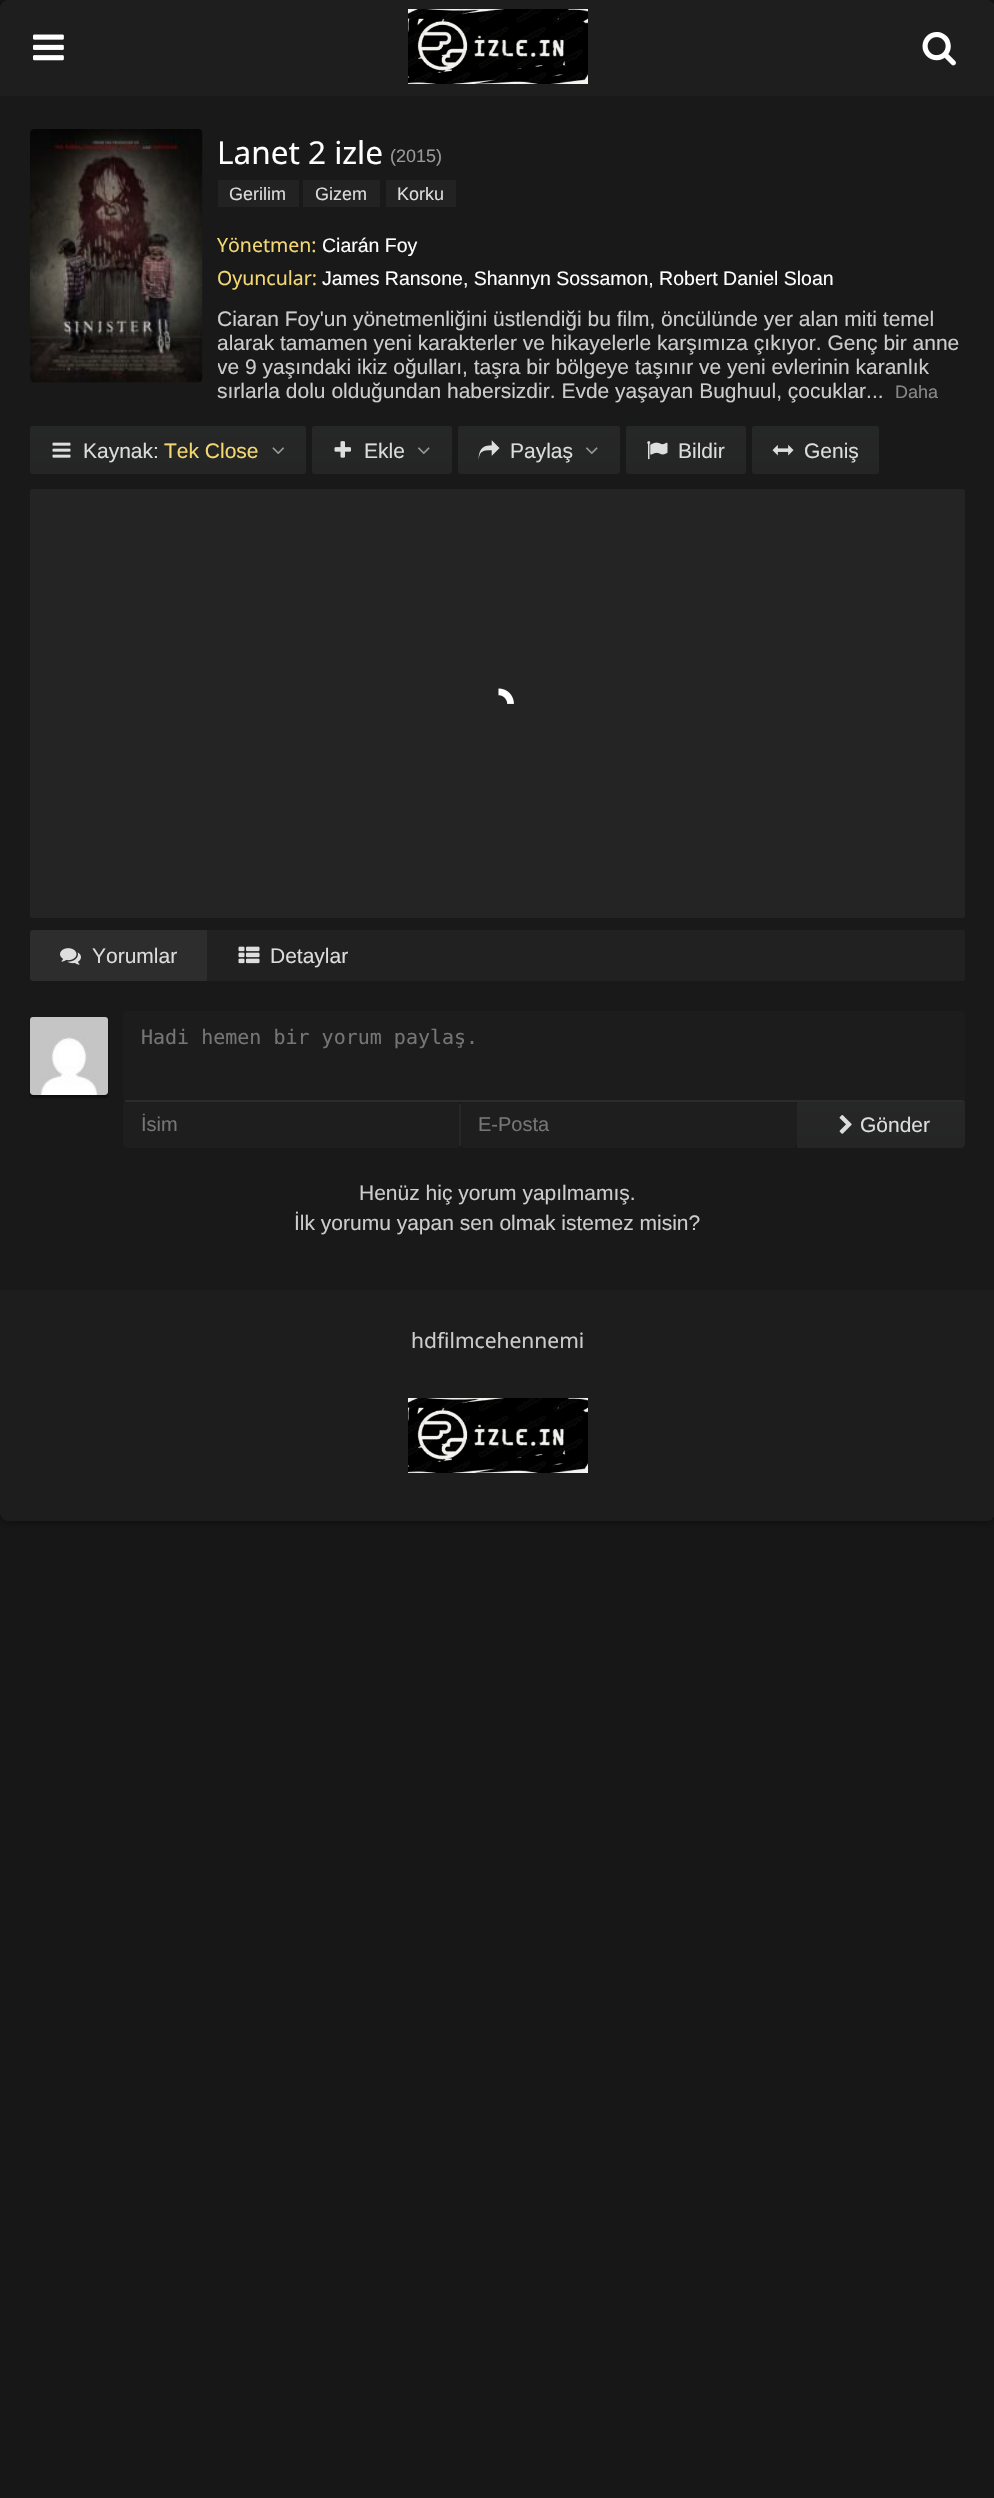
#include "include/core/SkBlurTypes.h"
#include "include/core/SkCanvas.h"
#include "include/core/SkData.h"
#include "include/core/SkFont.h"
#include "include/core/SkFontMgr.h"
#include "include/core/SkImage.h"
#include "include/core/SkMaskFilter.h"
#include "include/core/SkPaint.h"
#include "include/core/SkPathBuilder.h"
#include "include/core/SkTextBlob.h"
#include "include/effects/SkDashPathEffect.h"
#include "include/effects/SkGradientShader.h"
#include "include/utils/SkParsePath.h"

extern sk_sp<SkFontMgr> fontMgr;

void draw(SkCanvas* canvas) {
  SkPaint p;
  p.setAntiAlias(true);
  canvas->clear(SkColorSetRGB(23, 23, 23));
  p.setColor(SkColorSetARGB(133, 0, 0, 0));
  p.setMaskFilter(SkMaskFilter::MakeBlur(kNormal_SkBlurStyle, 5));
  canvas->drawRoundRect(SkRect::MakeLTRB(0, 0, 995, 1521), 9, 9, p);
  p.setMaskFilter(nullptr);
  p.setColor(SkColorSetRGB(25, 25, 25));
  canvas->drawRoundRect(SkRect::MakeLTRB(0, 0, 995, 1521), 9, 9, p);
  p.setColor(SkColorSetRGB(30, 30, 30));
  canvas->drawPath(SkPathBuilder().moveTo(9, 0).lineTo(986, 0).cubicTo(991, 0, 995, 4, 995, 9).lineTo(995, 96).lineTo(0, 96).lineTo(0, 9).cubicTo(0, 4, 4, 0, 9, 0).close().detach(), p);
  canvas->drawImageRect(SkImages::DeferredFromEncodedData(SkData::MakeFromFileName("images/1.png")), SkRect::MakeLTRB(33, 34, 64, 61), SkSamplingOptions());
  canvas->drawImageRect(SkImages::DeferredFromEncodedData(SkData::MakeFromFileName("images/2.png")), SkRect::MakeLTRB(408, 9, 588, 84), SkSamplingOptions());
  canvas->drawImageRect(SkImages::DeferredFromEncodedData(SkData::MakeFromFileName("images/3.png")), SkRect::MakeLTRB(922, 31, 956, 66), SkSamplingOptions());
  canvas->drawImageRect(SkImages::DeferredFromEncodedData(SkData::MakeFromFileName("images/4.png")), SkRect::MakeLTRB(30, 129, 203, 383), SkSamplingOptions());
  p.setColor(SkColorSetRGB(34, 34, 34));
  canvas->drawRect(SkRect::MakeLTRB(218, 180, 299, 207), p);
  canvas->drawRect(SkRect::MakeLTRB(303, 180, 380, 207), p);
  canvas->drawRect(SkRect::MakeLTRB(386, 180, 456, 207), p);
  {
    const SkColor colors[] = {SkColorSetRGB(38, 39, 39), SkColorSetRGB(37, 37, 37)};
    const float stops[] = {0, 1};
    const SkPoint ends[] = {{168, 426}, {168, 474}};
    p.setShader(SkGradientShader::MakeLinear(ends, colors, stops, 2, SkTileMode::kClamp));
    p.setAlpha(255);
  }
  canvas->drawRoundRect(SkRect::MakeLTRB(30, 426, 306, 474), 3, 3, p);
  canvas->drawImageRect(SkImages::DeferredFromEncodedData(SkData::MakeFromFileName("images/5.png")), SkRect::MakeLTRB(52, 442, 71, 458), SkSamplingOptions());
  canvas->drawImageRect(SkImages::DeferredFromEncodedData(SkData::MakeFromFileName("images/6.png")), SkRect::MakeLTRB(272, 447, 284, 455), SkSamplingOptions());
  {
    const SkColor colors[] = {SkColorSetRGB(38, 39, 39), SkColorSetRGB(37, 37, 37)};
    const float stops[] = {0, 1};
    const SkPoint ends[] = {{382, 426}, {382, 474}};
    p.setShader(SkGradientShader::MakeLinear(ends, colors, stops, 2, SkTileMode::kClamp));
    p.setAlpha(255);
  }
  canvas->drawRoundRect(SkRect::MakeLTRB(312, 426, 452, 474), 3, 3, p);
  canvas->drawImageRect(SkImages::DeferredFromEncodedData(SkData::MakeFromFileName("images/7.png")), SkRect::MakeLTRB(334, 441, 351, 458), SkSamplingOptions());
  canvas->drawImageRect(SkImages::DeferredFromEncodedData(SkData::MakeFromFileName("images/8.png")), SkRect::MakeLTRB(418, 447, 430, 455), SkSamplingOptions());
  {
    const SkColor colors[] = {SkColorSetRGB(38, 39, 39), SkColorSetRGB(37, 37, 37)};
    const float stops[] = {0, 1};
    const SkPoint ends[] = {{539, 426}, {539, 474}};
    p.setShader(SkGradientShader::MakeLinear(ends, colors, stops, 2, SkTileMode::kClamp));
    p.setAlpha(255);
  }
  canvas->drawRoundRect(SkRect::MakeLTRB(458, 426, 620, 474), 3, 3, p);
  canvas->drawImageRect(SkImages::DeferredFromEncodedData(SkData::MakeFromFileName("images/9.png")), SkRect::MakeLTRB(478, 440, 500, 460), SkSamplingOptions());
  canvas->drawImageRect(SkImages::DeferredFromEncodedData(SkData::MakeFromFileName("images/8.png")), SkRect::MakeLTRB(586, 447, 598, 455), SkSamplingOptions());
  {
    const SkColor colors[] = {SkColorSetRGB(38, 39, 39), SkColorSetRGB(37, 37, 37)};
    const float stops[] = {0, 1};
    const SkPoint ends[] = {{686, 426}, {686, 474}};
    p.setShader(SkGradientShader::MakeLinear(ends, colors, stops, 2, SkTileMode::kClamp));
    p.setAlpha(255);
  }
  canvas->drawRoundRect(SkRect::MakeLTRB(626, 426, 746, 474), 3, 3, p);
  canvas->drawImageRect(SkImages::DeferredFromEncodedData(SkData::MakeFromFileName("images/10.png")), SkRect::MakeLTRB(647, 441, 668, 460), SkSamplingOptions());
  {
    const SkColor colors[] = {SkColorSetRGB(38, 39, 39), SkColorSetRGB(37, 37, 37)};
    const float stops[] = {0, 1};
    const SkPoint ends[] = {{815, 426}, {815, 474}};
    p.setShader(SkGradientShader::MakeLinear(ends, colors, stops, 2, SkTileMode::kClamp));
    p.setAlpha(255);
  }
  canvas->drawRoundRect(SkRect::MakeLTRB(752, 426, 879, 474), 3, 3, p);
  canvas->drawImageRect(SkImages::DeferredFromEncodedData(SkData::MakeFromFileName("images/11.png")), SkRect::MakeLTRB(772, 445, 794, 456), SkSamplingOptions());
  p.setShader(nullptr);
  p.setColor(SkColorSetRGB(36, 36, 36));
  canvas->drawRoundRect(SkRect::MakeLTRB(30, 489, 965, 918), 3, 3, p);
  canvas->drawImageRect(SkImages::DeferredFromEncodedData(SkData::MakeFromFileName("images/12.png")), SkRect::MakeLTRB(498, 688, 514, 704), SkSamplingOptions());
  p.setColor(SkColorSetRGB(33, 33, 33));
  canvas->drawRoundRect(SkRect::MakeLTRB(30, 930, 965, 981), 3, 3, p);
  p.setColor(SkColorSetRGB(45, 45, 45));
  canvas->drawPath(SkPathBuilder().moveTo(33, 930).lineTo(207, 930).lineTo(207, 981).lineTo(33, 981).cubicTo(31.5f, 981, 30, 979.5f, 30, 978).lineTo(30, 933).cubicTo(30, 931.5f, 31.5f, 930, 33, 930).close().detach(), p);
  canvas->drawImageRect(SkImages::DeferredFromEncodedData(SkData::MakeFromFileName("images/13.png")), SkRect::MakeLTRB(60, 948, 81, 965), SkSamplingOptions());
  canvas->drawImageRect(SkImages::DeferredFromEncodedData(SkData::MakeFromFileName("images/14.png")), SkRect::MakeLTRB(238, 946, 260, 964), SkSamplingOptions());
  canvas->save();
  canvas->clipPath(SkPathBuilder(SkPathFillType::kEvenOdd).moveTo(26, 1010).lineTo(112, 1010).lineTo(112, 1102).lineTo(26, 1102).close().moveTo(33, 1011).lineTo(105, 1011).cubicTo(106.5f, 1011, 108, 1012.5f, 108, 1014).lineTo(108, 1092).cubicTo(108, 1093.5f, 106.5f, 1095, 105, 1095).lineTo(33, 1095).cubicTo(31.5f, 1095, 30, 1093.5f, 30, 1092).lineTo(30, 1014).cubicTo(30, 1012.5f, 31.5f, 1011, 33, 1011).close().detach(), true);
  p.setColor(SkColorSetARGB(112, 0, 0, 0));
  p.setMaskFilter(SkMaskFilter::MakeBlur(kNormal_SkBlurStyle, 1));
  canvas->drawRoundRect(SkRect::MakeLTRB(30, 1014, 108, 1098), 3, 3, p);
  p.setMaskFilter(nullptr);
  canvas->restore();
  canvas->drawImageRect(SkImages::DeferredFromEncodedData(SkData::MakeFromFileName("images/15.png")), SkRect::MakeLTRB(30, 1017, 108, 1095), SkSamplingOptions());
  p.setColor(SkColorSetRGB(28, 28, 28));
  canvas->drawPath(SkPathBuilder().moveTo(128, 1011).lineTo(960, 1011).cubicTo(963, 1011, 965, 1013, 965, 1016).lineTo(965, 1098).cubicTo(965, 1099.5f, 963.5f, 1101, 962, 1101).lineTo(126, 1101).cubicTo(124.5f, 1101, 123, 1099.5f, 123, 1098).lineTo(123, 1016).cubicTo(123, 1013, 125, 1011, 128, 1011).close().detach(), p);
  p.setColor(SkColorSetRGB(30, 30, 30));
  canvas->drawRoundRect(SkRect::MakeLTRB(123, 1101, 461, 1148), 5, 5, p);
  canvas->drawRoundRect(SkRect::MakeLTRB(461, 1101, 797, 1148), 5, 5, p);
  {
    const SkColor colors[] = {SkColorSetRGB(38, 39, 39), SkColorSetRGB(37, 37, 37)};
    const float stops[] = {0, 1};
    const SkPoint ends[] = {{881, 1101}, {881, 1148}};
    p.setShader(SkGradientShader::MakeLinear(ends, colors, stops, 2, SkTileMode::kClamp));
    p.setAlpha(255);
  }
  canvas->drawPath(SkPathBuilder().moveTo(797, 1101).lineTo(965, 1101).lineTo(965, 1143).cubicTo(965, 1146, 963, 1148, 960, 1148).lineTo(797, 1148).close().detach(), p);
  p.setShader(nullptr);
  p.setColor(SkColorSetRGB(43, 43, 43));
  canvas->drawRect(SkRect::MakeLTRB(125, 1100, 963, 1102), p);
  p.setColor(SkColorSetARGB(179, 43, 43, 43));
  canvas->drawRect(SkRect::MakeLTRB(459, 1104, 461, 1146), p);
  canvas->drawImageRect(SkImages::DeferredFromEncodedData(SkData::MakeFromFileName("images/16.png")), SkRect::MakeLTRB(839, 1115, 852, 1134), SkSamplingOptions());
  p.setColor(SkColorSetRGB(29, 29, 29));
  canvas->drawPath(SkPathBuilder().moveTo(0, 1290).lineTo(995, 1290).lineTo(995, 1512).cubicTo(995, 1517, 991, 1521, 986, 1521).lineTo(9, 1521).cubicTo(4, 1521, 0, 1517, 0, 1512).close().detach(), p);
  canvas->drawImageRect(SkImages::DeferredFromEncodedData(SkData::MakeFromFileName("images/17.png")), SkRect::MakeLTRB(408, 1398, 588, 1473), SkSamplingOptions());
  SkFont font1(fontMgr->matchFamilyStyle("Noto Sans", SkFontStyle::Normal()), 31.5f);
  font1.setSubpixel(true);
  p.setColor(SK_ColorWHITE);
  canvas->drawString("Lanet 2 izle", 217, 164, font1, p);
  SkFont font2(fontMgr->matchFamilyStyle("Liberation Sans", SkFontStyle::Normal()), 18);
  font2.setSubpixel(true);
  p.setColor(SkColorSetRGB(153, 153, 153));
  canvas->drawString("(2015)", 390, 162, font2, p);
  p.setColor(SkColorSetRGB(220, 220, 220));
  canvas->drawString("Gerilim", 229, 200, font2, p);
  canvas->drawString("Gizem", 315, 200, font2, p);
  canvas->drawString("Korku", 397, 200, font2, p);
  SkFont font3(fontMgr->matchFamilyStyle("Noto Sans", SkFontStyle::Normal()), 19.5f);
  font3.setSubpixel(true);
  p.setColor(SkColorSetRGB(243, 216, 114));
  canvas->drawString("Yönetmen:", 217, 252, font3, p);
  SkFont font4(fontMgr->matchFamilyStyle("Liberation Sans", SkFontStyle::Normal()), 19.5f);
  font4.setSubpixel(true);
  p.setColor(SK_ColorWHITE);
  canvas->drawString("Ciarán Foy", 322, 252, font4, p);
  p.setColor(SkColorSetRGB(243, 216, 114));
  canvas->drawString("Oyuncular:", 217, 285, font3, p);
  p.setColor(SK_ColorWHITE);
  canvas->drawString("James Ransone, Shannyn Sossamon, Robert Daniel Sloan", 322, 285, font4, p);
  SkFont font5(fontMgr->matchFamilyStyle("Liberation Sans", SkFontStyle::Normal()), 21);
  font5.setSubpixel(true);
  p.setColor(SkColorSetRGB(204, 204, 204));
  canvas->drawString("Ciaran Foy'un yönetmenliğini üstlendiği bu film, öncülünde yer alan miti temel", 217, 326, font5, p);
  canvas->drawString("alarak tamamen yeni karakterler ve hikayelerle karşımıza çıkıyor. Genç bir anne", 217, 350, font5, p);
  canvas->save();
  canvas->clipRect(SkRect::MakeLTRB(218, 306, 965, 404));
  canvas->drawString("ve 9 yaşındaki ikiz oğulları, taşra bir bölgeye taşınır ve yeni evlerinin karanlık", 217, 374, font5, p);
  canvas->restore();
  canvas->drawString("sırlarla dolu olduğundan habersizdir. Evde yaşayan Bughuul, çocuklar...", 217, 398, font5, p);
  p.setColor(SkColorSetRGB(136, 136, 136));
  canvas->drawString("Daha", 895, 398, font2, p);
  p.setColor(SkColorSetRGB(220, 220, 220));
  canvas->drawString("Kaynak:", 83, 458, font5, p);
  p.setColor(SkColorSetRGB(243, 216, 114));
  canvas->drawString("Tek Close", 164, 458, font5, p);
  p.setColor(SkColorSetRGB(220, 220, 220));
  canvas->drawString("Ekle", 364, 458, font5, p);
  canvas->drawString("Paylaş", 510, 458, font5, p);
  canvas->drawString("Bildir", 678, 458, font5, p);
  canvas->drawString("Geniş", 804, 458, font5, p);
  canvas->drawString("Yorumlar", 92, 963, font5, p);
  canvas->drawString("Detaylar", 270, 963, font5, p);
  SkFont font6(fontMgr->matchFamilyStyle("DejaVu Sans Mono", SkFontStyle::Normal()), 20);
  font6.setSubpixel(true);
  p.setColor(SkColorSetRGB(117, 117, 117));
  canvas->drawString("Hadi hemen bir yorum paylaş.", 141, 1044, font6, p);
  SkFont font7(fontMgr->matchFamilyStyle("Liberation Sans", SkFontStyle::Normal()), 20);
  font7.setSubpixel(true);
  canvas->drawString("İsim", 141, 1131, font7, p);
  canvas->drawString("E-Posta", 478, 1131, font7, p);
  p.setColor(SkColorSetRGB(220, 220, 220));
  canvas->drawString("Gönder", 860, 1132, font5, p);
  p.setColor(SkColorSetRGB(204, 204, 204));
  canvas->drawString("Henüz hiç yorum yapılmamış.", 359, 1200, font5, p);
  canvas->drawString("İlk yorumu yapan sen olmak istemez misin?", 294, 1230, font5, p);
  SkFont font8(fontMgr->matchFamilyStyle("Noto Sans", SkFontStyle::Normal()), 21);
  font8.setSubpixel(true);
  canvas->drawString("hdfilmcehennemi", 411, 1348, font8, p);
}
